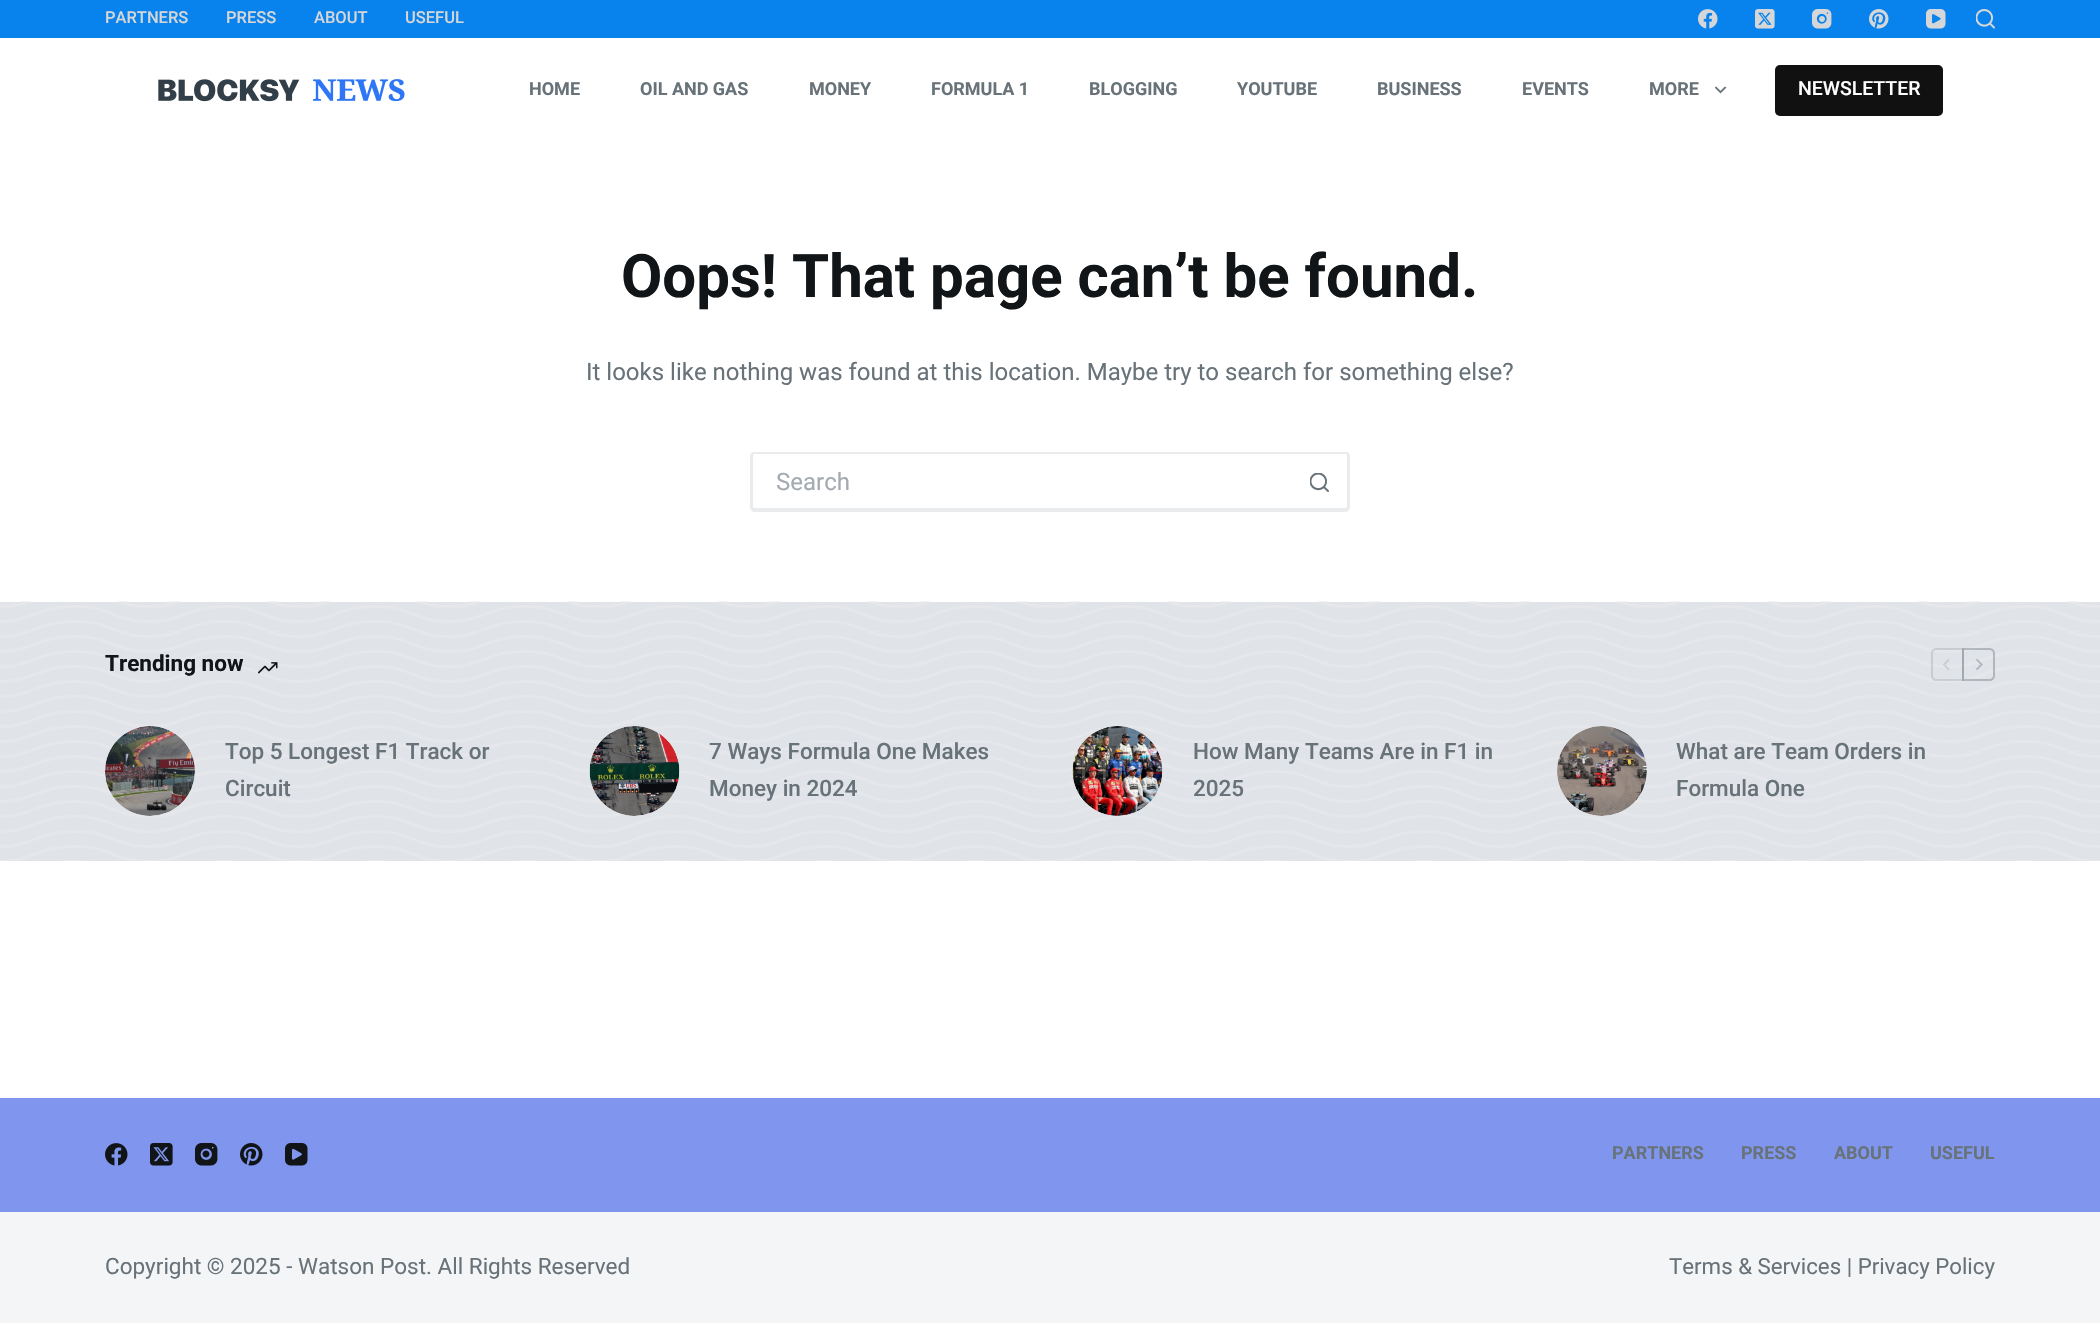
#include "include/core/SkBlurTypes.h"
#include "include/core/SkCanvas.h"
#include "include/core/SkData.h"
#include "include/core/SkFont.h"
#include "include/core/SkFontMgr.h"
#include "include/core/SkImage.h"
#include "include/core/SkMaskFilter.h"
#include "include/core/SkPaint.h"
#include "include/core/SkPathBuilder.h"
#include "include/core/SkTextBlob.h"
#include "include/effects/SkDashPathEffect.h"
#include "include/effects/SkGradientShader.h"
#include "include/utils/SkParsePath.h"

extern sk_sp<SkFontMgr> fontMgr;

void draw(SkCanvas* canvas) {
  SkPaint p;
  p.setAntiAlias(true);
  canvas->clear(SK_ColorWHITE);
  p.setColor(SkColorSetRGB(8, 130, 236));
  canvas->drawRect(SkRect::MakeLTRB(0, 0, 2100, 38), p);
  canvas->drawImageRect(SkImages::DeferredFromEncodedData(SkData::MakeFromFileName("images/1.png")), SkRect::MakeLTRB(1698, 9, 1718, 29), SkSamplingOptions());
  canvas->drawImageRect(SkImages::DeferredFromEncodedData(SkData::MakeFromFileName("images/2.png")), SkRect::MakeLTRB(1755, 9, 1775, 29), SkSamplingOptions());
  canvas->drawImageRect(SkImages::DeferredFromEncodedData(SkData::MakeFromFileName("images/3.png")), SkRect::MakeLTRB(1812, 9, 1832, 29), SkSamplingOptions());
  canvas->drawImageRect(SkImages::DeferredFromEncodedData(SkData::MakeFromFileName("images/4.png")), SkRect::MakeLTRB(1869, 9, 1889, 29), SkSamplingOptions());
  canvas->drawImageRect(SkImages::DeferredFromEncodedData(SkData::MakeFromFileName("images/5.png")), SkRect::MakeLTRB(1926, 9, 1946, 29), SkSamplingOptions());
  canvas->drawImageRect(SkImages::DeferredFromEncodedData(SkData::MakeFromFileName("images/6.png")), SkRect::MakeLTRB(1976, 9, 1995, 29), SkSamplingOptions());
  canvas->drawImageRect(SkImages::DeferredFromEncodedData(SkData::MakeFromFileName("images/7.png")), SkRect::MakeLTRB(158, 79, 405, 102), SkSamplingOptions());
  canvas->drawImageRect(SkImages::DeferredFromEncodedData(SkData::MakeFromFileName("images/8.png")), SkRect::MakeLTRB(1715, 86, 1727, 94), SkSamplingOptions());
  p.setColor(SkColorSetRGB(17, 17, 17));
  canvas->drawRoundRect(SkRect::MakeLTRB(1775, 65, 1943, 116), 5, 5, p);
  p.setColor(SkColorSetRGB(233, 235, 236));
  canvas->drawPath(SkPathBuilder(SkPathFillType::kEvenOdd).moveTo(754, 452).lineTo(1290, 452).lineTo(1290, 512).lineTo(754, 512).cubicTo(752, 512, 750, 509, 750, 507).lineTo(750, 456).cubicTo(750, 454, 752, 452, 754, 452).close().moveTo(754, 454).lineTo(1290, 454).lineTo(1290, 508).lineTo(754, 508).lineTo(753, 507).lineTo(753, 456).cubicTo(753, 455, 754, 454, 754, 454).close().detach(), p);
  canvas->drawPath(SkPathBuilder(SkPathFillType::kEvenOdd).moveTo(1290, 452).lineTo(1346, 452).cubicTo(1348, 452, 1350, 454, 1350, 456).lineTo(1350, 507).cubicTo(1350, 509, 1348, 512, 1346, 512).lineTo(1290, 512).close().moveTo(1290, 454).lineTo(1346, 454).cubicTo(1346, 454, 1347, 455, 1347, 456).lineTo(1347, 507).cubicTo(1347, 508, 1346, 508, 1346, 508).lineTo(1290, 508).close().detach(), p);
  canvas->drawImageRect(SkImages::DeferredFromEncodedData(SkData::MakeFromFileName("images/9.png")), SkRect::MakeLTRB(1310, 473, 1329, 492), SkSamplingOptions());
  p.setColor(SkColorSetRGB(224, 227, 232));
  canvas->drawRect(SkRect::MakeLTRB(0, 602, 2100, 861), p);
  canvas->drawImageRect(SkImages::DeferredFromEncodedData(SkData::MakeFromFileName("images/10.png")), SkRect::MakeLTRB(0, 601, 2100, 861), SkSamplingOptions());
  canvas->drawImageRect(SkImages::DeferredFromEncodedData(SkData::MakeFromFileName("images/11.png")), SkRect::MakeLTRB(258, 662, 278, 674), SkSamplingOptions());
  p.setStyle(SkPaint::kStroke_Style);
  p.setStrokeWidth(2);
  p.setColor(SkColorSetARGB(51, 104, 114, 121));
  canvas->drawPath(SkPathBuilder().moveTo(1936, 649).lineTo(1963, 649).lineTo(1963, 680).lineTo(1936, 680).cubicTo(1934, 680, 1932, 678, 1932, 676).lineTo(1932, 653).cubicTo(1932, 651, 1934, 649, 1936, 649).close().detach(), p);
  canvas->drawImageRect(SkImages::DeferredFromEncodedData(SkData::MakeFromFileName("images/12.png")), SkRect::MakeLTRB(1942, 659, 1950, 671), SkSamplingOptions());
  p.setColor(SkColorSetARGB(102, 104, 114, 121));
  canvas->drawPath(SkPathBuilder().moveTo(1963, 649).lineTo(1990, 649).cubicTo(1992, 649, 1994, 651, 1994, 653).lineTo(1994, 676).cubicTo(1994, 678, 1992, 680, 1990, 680).lineTo(1963, 680).close().detach(), p);
  canvas->drawImageRect(SkImages::DeferredFromEncodedData(SkData::MakeFromFileName("images/13.png")), SkRect::MakeLTRB(1976, 659, 1983, 671), SkSamplingOptions());
  canvas->drawImageRect(SkImages::DeferredFromEncodedData(SkData::MakeFromFileName("images/14.png")), SkRect::MakeLTRB(105, 726, 195, 816), SkSamplingOptions());
  canvas->drawImageRect(SkImages::DeferredFromEncodedData(SkData::MakeFromFileName("images/15.png")), SkRect::MakeLTRB(589, 726, 680, 816), SkSamplingOptions());
  canvas->drawImageRect(SkImages::DeferredFromEncodedData(SkData::MakeFromFileName("images/16.png")), SkRect::MakeLTRB(1072, 726, 1163, 816), SkSamplingOptions());
  canvas->drawImageRect(SkImages::DeferredFromEncodedData(SkData::MakeFromFileName("images/17.png")), SkRect::MakeLTRB(1557, 726, 1647, 816), SkSamplingOptions());
  p.setStyle(SkPaint::kFill_Style);
  p.setColor(SkColorSetRGB(244, 245, 246));
  canvas->drawRect(SkRect::MakeLTRB(0, 1212, 2100, 1323), p);
  p.setColor(SkColorSetRGB(128, 150, 238));
  canvas->drawRect(SkRect::MakeLTRB(0, 1098, 2100, 1212), p);
  canvas->drawImageRect(SkImages::DeferredFromEncodedData(SkData::MakeFromFileName("images/18.png")), SkRect::MakeLTRB(105, 1143, 128, 1166), SkSamplingOptions());
  canvas->drawImageRect(SkImages::DeferredFromEncodedData(SkData::MakeFromFileName("images/19.png")), SkRect::MakeLTRB(150, 1143, 173, 1166), SkSamplingOptions());
  canvas->drawImageRect(SkImages::DeferredFromEncodedData(SkData::MakeFromFileName("images/20.png")), SkRect::MakeLTRB(195, 1143, 218, 1166), SkSamplingOptions());
  canvas->drawImageRect(SkImages::DeferredFromEncodedData(SkData::MakeFromFileName("images/21.png")), SkRect::MakeLTRB(240, 1143, 263, 1166), SkSamplingOptions());
  canvas->drawImageRect(SkImages::DeferredFromEncodedData(SkData::MakeFromFileName("images/22.png")), SkRect::MakeLTRB(285, 1143, 308, 1166), SkSamplingOptions());
  SkFont font1(fontMgr->matchFamilyStyle("Roboto", SkFontStyle(500, SkFontStyle::kNormal_Width, SkFontStyle::kUpright_Slant)), 16.5f);
  font1.setSubpixel(true);
  p.setColor(SkColorSetRGB(212, 214, 216));
  canvas->drawString("PARTNERS", 105, 23, font1, p);
  canvas->drawString("PRESS", 226, 23, font1, p);
  canvas->drawString("ABOUT", 314, 23, font1, p);
  canvas->drawString("USEFUL", 405, 23, font1, p);
  SkFont font2(fontMgr->matchFamilyStyle("Roboto", SkFontStyle::Bold()), 18);
  font2.setSubpixel(true);
  p.setColor(SkColorSetRGB(104, 114, 121));
  canvas->drawString("HOME", 529, 95, font2, p);
  canvas->drawString("OIL AND GAS", 640, 95, font2, p);
  canvas->drawString("MONEY", 809, 95, font2, p);
  canvas->drawString("FORMULA 1", 931, 95, font2, p);
  canvas->drawString("BLOGGING", 1089, 95, font2, p);
  canvas->drawString("YOUTUBE", 1237, 95, font2, p);
  canvas->drawString("BUSINESS", 1377, 95, font2, p);
  canvas->drawString("EVENTS", 1522, 95, font2, p);
  canvas->drawString("MORE", 1649, 95, font2, p);
  SkFont font3(fontMgr->matchFamilyStyle("Roboto", SkFontStyle(500, SkFontStyle::kNormal_Width, SkFontStyle::kUpright_Slant)), 19.5f);
  font3.setSubpixel(true);
  p.setColor(SK_ColorWHITE);
  canvas->drawString("NEWSLETTER", 1798, 95, font3, p);
  SkFont font4(fontMgr->matchFamilyStyle("Roboto", SkFontStyle::Bold()), 60);
  font4.setSubpixel(true);
  p.setColor(SkColorSetRGB(17, 21, 24));
  canvas->drawString("Oops! That page can’t be found.", 621, 297, font4, p);
  SkFont font5(fontMgr->matchFamilyStyle("Roboto", SkFontStyle::Normal()), 24);
  font5.setSubpixel(true);
  p.setColor(SkColorSetRGB(104, 114, 121));
  canvas->drawString("It looks like nothing was found at this location. Maybe try to search for something else?", 586, 380, font5, p);
  p.setColor(SkColorSetRGB(164, 170, 175));
  canvas->drawString("Search", 776, 490, font5, p);
  SkFont font6(fontMgr->matchFamilyStyle("Roboto", SkFontStyle::Bold()), 22.5f);
  font6.setSubpixel(true);
  p.setColor(SkColorSetRGB(17, 21, 24));
  canvas->drawString("Trending now", 105, 671, font6, p);
  SkFont font7(fontMgr->matchFamilyStyle("Roboto", SkFontStyle(500, SkFontStyle::kNormal_Width, SkFontStyle::kUpright_Slant)), 22.5f);
  font7.setSubpixel(true);
  p.setColor(SkColorSetRGB(104, 114, 121));
  canvas->drawString("Top 5 Longest F1 Track or", 225, 759, font7, p);
  canvas->drawString("Circuit", 225, 796, font7, p);
  canvas->drawString("7 Ways Formula One Makes", 709, 759, font7, p);
  canvas->drawString("Money in 2024", 709, 796, font7, p);
  canvas->drawString("How Many Teams Are in F1 in", 1193, 759, font7, p);
  canvas->drawString("2025", 1193, 796, font7, p);
  canvas->drawString("What are Team Orders in", 1676, 759, font7, p);
  canvas->drawString("Formula One", 1676, 796, font7, p);
  canvas->drawString("PARTNERS", 1612, 1159, font2, p);
  canvas->drawString("PRESS", 1741, 1159, font2, p);
  canvas->drawString("ABOUT", 1834, 1159, font2, p);
  canvas->drawString("USEFUL", 1930, 1159, font2, p);
  SkFont font8(fontMgr->matchFamilyStyle("Roboto", SkFontStyle::Normal()), 22.5f);
  font8.setSubpixel(true);
  canvas->drawString("Copyright © 2025 - Watson Post. All Rights Reserved", 105, 1274, font8, p);
  SkFont font9(fontMgr->matchFamilyStyle("Roboto", SkFontStyle::Normal()), 22.25f);
  font9.setSubpixel(true);
  canvas->drawString("Terms & Services | Privacy Policy", 1669, 1274, font9, p);
}
